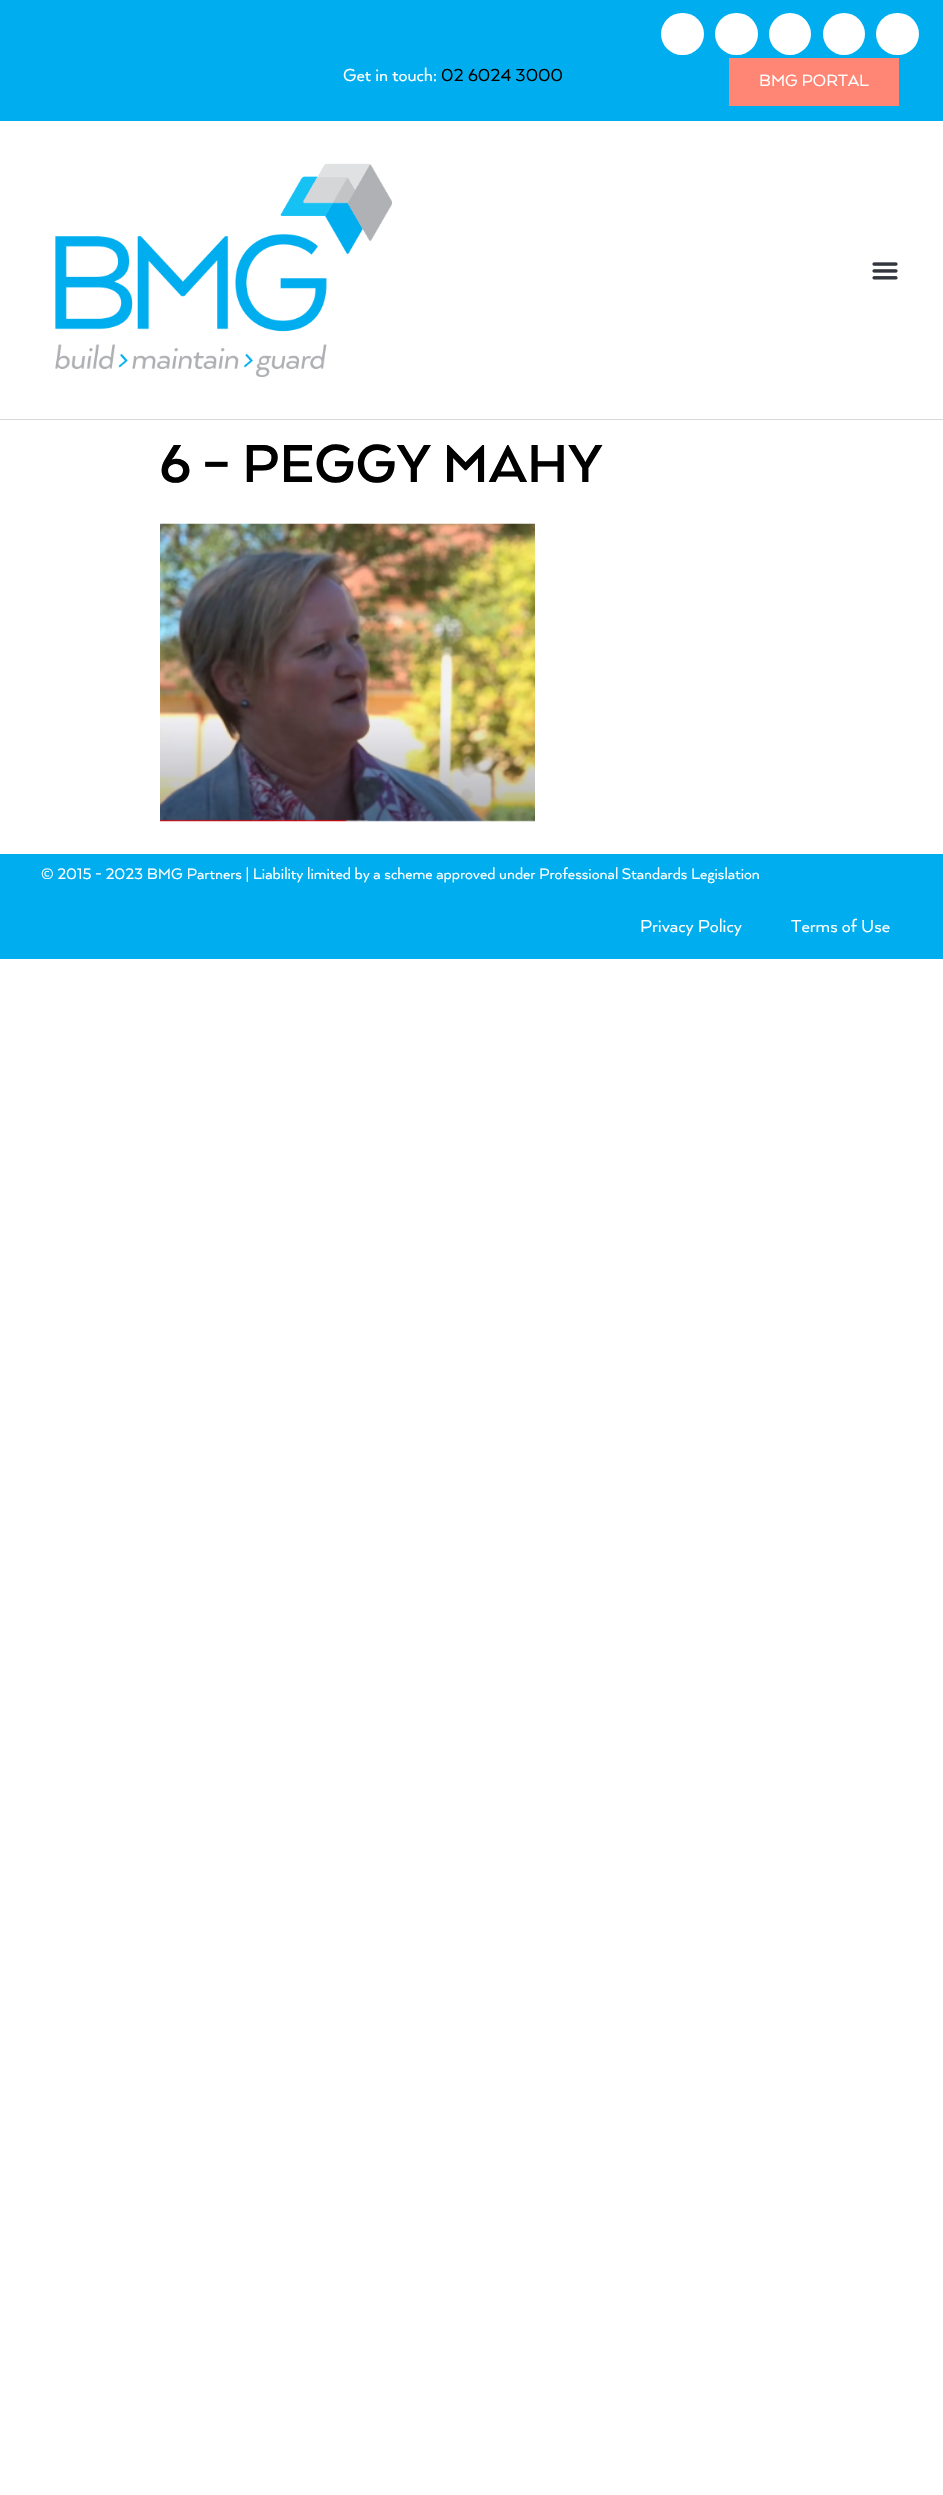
#include "include/core/SkBlurTypes.h"
#include "include/core/SkCanvas.h"
#include "include/core/SkData.h"
#include "include/core/SkFont.h"
#include "include/core/SkFontMgr.h"
#include "include/core/SkImage.h"
#include "include/core/SkMaskFilter.h"
#include "include/core/SkPaint.h"
#include "include/core/SkPathBuilder.h"
#include "include/core/SkTextBlob.h"
#include "include/effects/SkDashPathEffect.h"
#include "include/effects/SkGradientShader.h"
#include "include/utils/SkParsePath.h"

extern sk_sp<SkFontMgr> fontMgr;

void draw(SkCanvas* canvas) {
  SkPaint p;
  p.setAntiAlias(true);
  canvas->clear(SK_ColorWHITE);
  p.setColor(SkColorSetRGB(0, 174, 239));
  canvas->drawRect(SkRect::MakeLTRB(0, 0, 943, 121), p);
  p.setColor(SK_ColorWHITE);
  canvas->drawRoundRect(SkRect::MakeLTRB(661, 13, 704, 55), 21, 21, p);
  canvas->drawRoundRect(SkRect::MakeLTRB(715, 13, 758, 55), 21, 21, p);
  canvas->drawCircle(790, 34, 21, p);
  canvas->drawCircle(844, 34, 21, p);
  canvas->drawRoundRect(SkRect::MakeLTRB(876, 13, 919, 55), 21, 21, p);
  p.setColor(SkColorSetRGB(255, 134, 116));
  canvas->drawRect(SkRect::MakeLTRB(729, 58, 899, 106), p);
  p.setColor(SkColorSetRGB(216, 216, 216));
  canvas->drawRect(SkRect::MakeLTRB(0, 419, 943, 420), p);
  canvas->drawImageRect(SkImages::DeferredFromEncodedData(SkData::MakeFromFileName("images/1.png")), SkRect::MakeLTRB(55, 163, 392, 377), SkSamplingOptions());
  canvas->drawImageRect(SkImages::DeferredFromEncodedData(SkData::MakeFromFileName("images/2.png")), SkRect::MakeLTRB(872, 262, 898, 280), SkSamplingOptions());
  canvas->drawImageRect(SkImages::DeferredFromEncodedData(SkData::MakeFromFileName("images/3.png")), SkRect::MakeLTRB(160, 523, 535, 822), SkSamplingOptions());
  p.setColor(SkColorSetRGB(0, 174, 239));
  canvas->drawRect(SkRect::MakeLTRB(0, 854, 943, 959), p);
  SkFont font1(fontMgr->matchFamilyStyle("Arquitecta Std", SkFontStyle::Normal()), 20);
  font1.setSubpixel(true);
  p.setColor(SK_ColorWHITE);
  canvas->drawString("Get in touch:", 343, 81, font1, p);
  p.setColor(SK_ColorBLACK);
  canvas->drawString("02 6024 3000", 441, 81, font1, p);
  SkFont font2(fontMgr->matchFamilyStyle("Arquitecta Std", SkFontStyle::Normal()), 18.75f);
  font2.setSubpixel(true);
  p.setColor(SK_ColorWHITE);
  canvas->drawString("BMG PORTAL", 759, 86, font2, p);
  SkFont font3(fontMgr->matchFamilyStyle("Arquitecta Std", SkFontStyle::Bold()), 61.5f);
  font3.setSubpixel(true);
  p.setColor(SK_ColorBLACK);
  canvas->drawString("6 – PEGGY MAHY", 159, 482, font3, p);
  SkFont font4(fontMgr->matchFamilyStyle("Arquitecta Std", SkFontStyle::Normal()), 17.5f);
  font4.setSubpixel(true);
  p.setColor(SK_ColorWHITE);
  canvas->drawString("© 2015 - 2023 BMG Partners | Liability limited by a scheme approved under Professional Standards Legislation", 41, 879, font4, p);
  canvas->drawString("Privacy Policy", 640, 932, font1, p);
  canvas->drawString("Terms of Use", 791, 932, font1, p);
}
